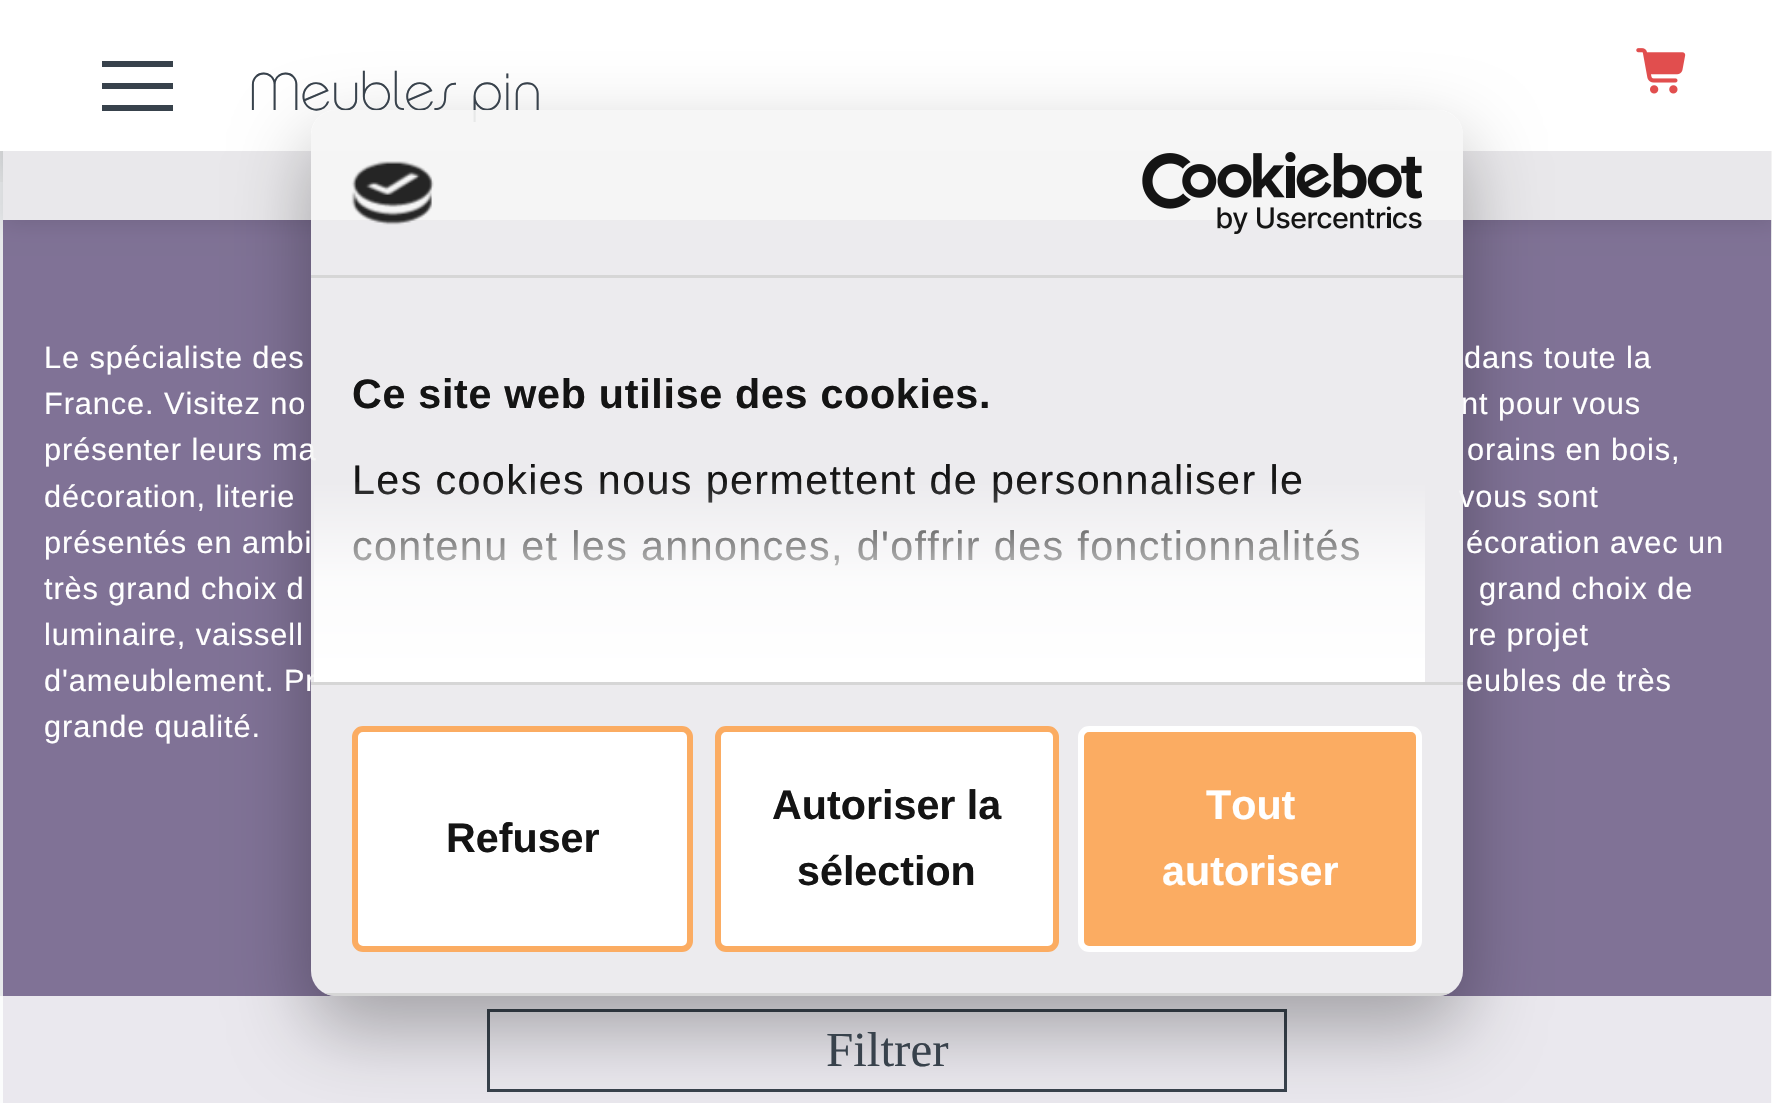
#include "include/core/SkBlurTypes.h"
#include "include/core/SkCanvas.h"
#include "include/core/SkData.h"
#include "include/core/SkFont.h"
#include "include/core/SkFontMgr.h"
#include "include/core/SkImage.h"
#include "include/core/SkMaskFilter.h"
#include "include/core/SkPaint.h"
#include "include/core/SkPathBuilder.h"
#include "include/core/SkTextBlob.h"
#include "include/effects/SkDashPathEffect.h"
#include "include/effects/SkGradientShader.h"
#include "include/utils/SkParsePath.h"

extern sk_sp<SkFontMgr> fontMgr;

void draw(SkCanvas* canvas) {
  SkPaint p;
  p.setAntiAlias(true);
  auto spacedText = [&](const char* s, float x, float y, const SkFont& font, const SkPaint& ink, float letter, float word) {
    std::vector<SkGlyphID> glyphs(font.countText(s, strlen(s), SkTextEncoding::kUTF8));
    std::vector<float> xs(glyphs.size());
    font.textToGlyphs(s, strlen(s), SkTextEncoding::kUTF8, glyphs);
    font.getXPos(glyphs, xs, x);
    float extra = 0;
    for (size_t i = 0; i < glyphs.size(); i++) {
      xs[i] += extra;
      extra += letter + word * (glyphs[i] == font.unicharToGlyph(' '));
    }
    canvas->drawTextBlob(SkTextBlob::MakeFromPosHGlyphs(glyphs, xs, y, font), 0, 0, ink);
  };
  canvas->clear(SK_ColorWHITE);
  p.setStyle(SkPaint::kStroke_Style);
  p.setStrokeWidth(3);
  p.setColor(SkColorSetRGB(231, 233, 235));
  canvas->drawRect(SkRect::MakeLTRB(1.5f, -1.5f, 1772.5f, 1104.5f), p);
  p.setStyle(SkPaint::kFill_Style);
  p.setColor(SkColorSetRGB(128, 114, 150));
  canvas->drawRect(SkRect::MakeLTRB(3, 151, 1771, 1103), p);
  canvas->save();
  canvas->clipRect(SkRect::MakeLTRB(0, 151, 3, 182));
  p.setColor(SkColorSetARGB(56, 0, 0, 0));
  p.setMaskFilter(SkMaskFilter::MakeBlur(kNormal_SkBlurStyle, 23.5f));
  canvas->drawRect(SkRect::MakeLTRB(3, 83, 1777, 162), p);
  p.setMaskFilter(nullptr);
  canvas->restore();
  canvas->save();
  canvas->clipPath(SkPathBuilder(SkPathFillType::kEvenOdd).moveTo(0, 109).lineTo(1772, 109).lineTo(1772, 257).lineTo(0, 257).close().moveTo(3, 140).lineTo(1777, 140).lineTo(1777, 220).lineTo(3, 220).close().detach(), true);
  p.setColor(SkColorSetARGB(28, 0, 0, 0));
  p.setMaskFilter(SkMaskFilter::MakeBlur(kNormal_SkBlurStyle, 11));
  canvas->drawRect(SkRect::MakeLTRB(3, 143, 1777, 223), p);
  p.setMaskFilter(nullptr);
  canvas->restore();
  p.setColor(SkColorSetARGB(230, 244, 244, 244));
  canvas->drawRect(SkRect::MakeLTRB(3, 151, 1772, 220), p);
  p.setColor(SK_ColorWHITE);
  canvas->drawRect(SkRect::MakeLTRB(0, 0, 1772, 151), p);
  p.setColor(SkColorSetRGB(56, 66, 76));
  canvas->drawRect(SkRect::MakeLTRB(102, 105, 173, 111), p);
  canvas->drawRect(SkRect::MakeLTRB(102, 61, 173, 67), p);
  canvas->drawRect(SkRect::MakeLTRB(102, 83, 173, 89), p);
  canvas->drawImageRect(SkImages::DeferredFromEncodedData(SkData::MakeFromFileName("images/1.png")), SkRect::MakeLTRB(1636, 48, 1686, 94), SkSamplingOptions());
  p.setColor(SkColorSetARGB(212, 255, 255, 255));
  canvas->drawRect(SkRect::MakeLTRB(0, 996, 1772, 1103), p);
  p.setStyle(SkPaint::kStroke_Style);
  p.setColor(SkColorSetRGB(56, 66, 76));
  canvas->drawRect(SkRect::MakeLTRB(488.5f, 1010.5f, 1285.5f, 1090.5f), p);
  canvas->save();
  canvas->clipPath(SkPathBuilder(SkPathFillType::kEvenOdd).moveTo(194, 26).lineTo(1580, 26).lineTo(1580, 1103).lineTo(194, 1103).close().moveTo(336, 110).lineTo(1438, 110).cubicTo(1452, 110, 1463, 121, 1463, 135).lineTo(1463, 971).cubicTo(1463, 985, 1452, 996, 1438, 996).lineTo(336, 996).cubicTo(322, 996, 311, 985, 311, 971).lineTo(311, 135).cubicTo(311, 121, 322, 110, 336, 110).close().detach(), true);
  p.setStyle(SkPaint::kFill_Style);
  p.setColor(SkColorSetARGB(77, 0, 0, 0));
  p.setMaskFilter(SkMaskFilter::MakeBlur(kNormal_SkBlurStyle, 38.5f));
  canvas->drawRoundRect(SkRect::MakeLTRB(311, 143, 1463, 1029), 25, 25, p);
  p.setMaskFilter(nullptr);
  canvas->restore();
  SkFont font1(fontMgr->matchFamilyStyle("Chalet", SkFontStyle(500, SkFontStyle::kNormal_Width, SkFontStyle::kUpright_Slant)), 52.75f);
  font1.setSubpixel(true);
  p.setColor(SkColorSetRGB(56, 66, 76));
  canvas->drawString("Meubles pin", 248, 110, font1, p);
  SkFont font2(fontMgr->matchFamilyStyle("Liberation Sans", SkFontStyle::Normal()), 30.75f);
  font2.setSubpixel(true);
  p.setColor(SK_ColorWHITE);
  spacedText("Le spécialiste des", 44, 368, font2, p, 0.9f, 0);
  spacedText("dans toute la", 1464, 368, font2, p, 0.9f, 0);
  spacedText("France. Visitez no", 44, 414, font2, p, 0.9f, 0);
  spacedText("nt pour vous", 1461, 414, font2, p, 0.9f, 0);
  spacedText("présenter leurs ma", 44, 460, font2, p, 0.9f, 0);
  spacedText("orains en bois,", 1467, 460, font2, p, 0.9f, 0);
  spacedText("décoration, literie", 44, 507, font2, p, 0.9f, 0);
  spacedText("vous sont", 1459, 507, font2, p, 0.9f, 0);
  spacedText("présentés en ambi", 44, 553, font2, p, 0.9f, 0);
  spacedText("écoration avec un", 1466, 553, font2, p, 0.9f, 0);
  spacedText("très grand choix d", 44, 599, font2, p, 0.9f, 0);
  spacedText("grand choix de", 1479, 599, font2, p, 0.9f, 0);
  spacedText("luminaire, vaissell", 44, 645, font2, p, 0.9f, 0);
  spacedText("re projet", 1468, 645, font2, p, 0.9f, 0);
  spacedText("d'ameublement. Pr", 44, 691, font2, p, 0.9f, 0);
  spacedText("eubles de très", 1466, 691, font2, p, 0.9f, 0);
  spacedText("grande qualité.", 44, 737, font2, p, 0.9f, 0);
  p.setColor(SkColorSetARGB(235, 245, 245, 245));
  canvas->drawRoundRect(SkRect::MakeLTRB(311, 110, 1463, 996), 25, 25, p);
  p.setColor(SkColorSetRGB(214, 214, 214));
  canvas->drawRect(SkRect::MakeLTRB(311, 275, 1463, 278), p);
  canvas->drawImageRect(SkImages::DeferredFromEncodedData(SkData::MakeFromFileName("images/2.png")), SkRect::MakeLTRB(351, 161, 434, 225), SkSamplingOptions());
  canvas->drawImageRect(SkImages::DeferredFromEncodedData(SkData::MakeFromFileName("images/3.png")), SkRect::MakeLTRB(1142, 152, 1422, 234), SkSamplingOptions());
  canvas->drawRect(SkRect::MakeLTRB(311, 682, 1463, 685), p);
  SkFont font3(fontMgr->matchFamilyStyle("Liberation Sans", SkFontStyle::Bold()), 41.25f);
  font3.setSubpixel(true);
  p.setColor(SkColorSetRGB(20, 20, 20));
  spacedText("Ce site web utilise des cookies.", 352, 408, font3, p, 0.7f, 0);
  SkFont font4(fontMgr->matchFamilyStyle("Liberation Sans", SkFontStyle::Normal()), 41.25f);
  font4.setSubpixel(true);
  spacedText("Les cookies nous permettent de personnaliser le", 352, 494, font4, p, 1.38f, 0);
  spacedText("contenu et les annonces, d'offrir des fonctionnalités", 352, 560, font4, p, 1.38f, 0);
  {
    const SkColor colors[] = {SK_ColorWHITE, SkColorSetARGB(204, 255, 255, 255), SkColorSetARGB(0, 255, 255, 255)};
    const float stops[] = {0, 0.5f, 1};
    const SkPoint ends[] = {{870, 683}, {870, 479}};
    p.setShader(SkGradientShader::MakeLinear(ends, colors, stops, 3, SkTileMode::kClamp));
    p.setAlpha(255);
  }
  canvas->drawRect(SkRect::MakeLTRB(314, 482, 1425, 682), p);
  canvas->save();
  canvas->clipPath(SkPathBuilder().moveTo(336, 110).lineTo(1438, 110).cubicTo(1452, 110, 1463, 121, 1463, 135).lineTo(1463, 971).cubicTo(1463, 985, 1452, 996, 1438, 996).lineTo(336, 996).cubicTo(322, 996, 311, 985, 311, 971).lineTo(311, 135).cubicTo(311, 121, 322, 110, 336, 110).close().detach(), true);
  p.setShader(nullptr);
  p.setColor(SkColorSetRGB(214, 214, 214));
  canvas->drawRect(SkRect::MakeLTRB(324, 993, 1450, 996), p);
  canvas->restore();
  p.setColor(SK_ColorWHITE);
  canvas->drawRoundRect(SkRect::MakeLTRB(355, 729, 690, 949), 8, 8, p);
  p.setStyle(SkPaint::kStroke_Style);
  p.setStrokeWidth(6);
  p.setColor(SkColorSetRGB(251, 172, 98));
  canvas->drawRoundRect(SkRect::MakeLTRB(355, 729, 690, 949), 8, 8, p);
  p.setStyle(SkPaint::kFill_Style);
  p.setColor(SkColorSetRGB(20, 20, 20));
  canvas->drawString("Refuser", 446, 852, font3, p);
  p.setColor(SK_ColorWHITE);
  canvas->drawRoundRect(SkRect::MakeLTRB(718, 729, 1056, 949), 8, 8, p);
  p.setStyle(SkPaint::kStroke_Style);
  p.setColor(SkColorSetRGB(251, 172, 98));
  canvas->drawRoundRect(SkRect::MakeLTRB(718, 729, 1056, 949), 8, 8, p);
  p.setStyle(SkPaint::kFill_Style);
  p.setColor(SkColorSetRGB(20, 20, 20));
  canvas->drawString("Autoriser la", 772, 819, font3, p);
  canvas->drawString("sélection", 797, 885, font3, p);
  p.setColor(SkColorSetRGB(251, 172, 98));
  canvas->drawRoundRect(SkRect::MakeLTRB(1081, 729, 1419, 949), 8, 8, p);
  p.setStyle(SkPaint::kStroke_Style);
  p.setColor(SK_ColorWHITE);
  canvas->drawRoundRect(SkRect::MakeLTRB(1081, 729, 1419, 949), 8, 8, p);
  p.setStyle(SkPaint::kFill_Style);
  canvas->drawString("Tout", 1206, 819, font3, p);
  canvas->drawString("autoriser", 1162, 885, font3, p);
  SkFont font5(fontMgr->matchFamilyStyle("Liberation Serif", SkFontStyle::Normal()), 49);
  font5.setSubpixel(true);
  p.setColor(SkColorSetRGB(56, 66, 76));
  canvas->drawString("Filtrer", 826, 1066, font5, p);
}
